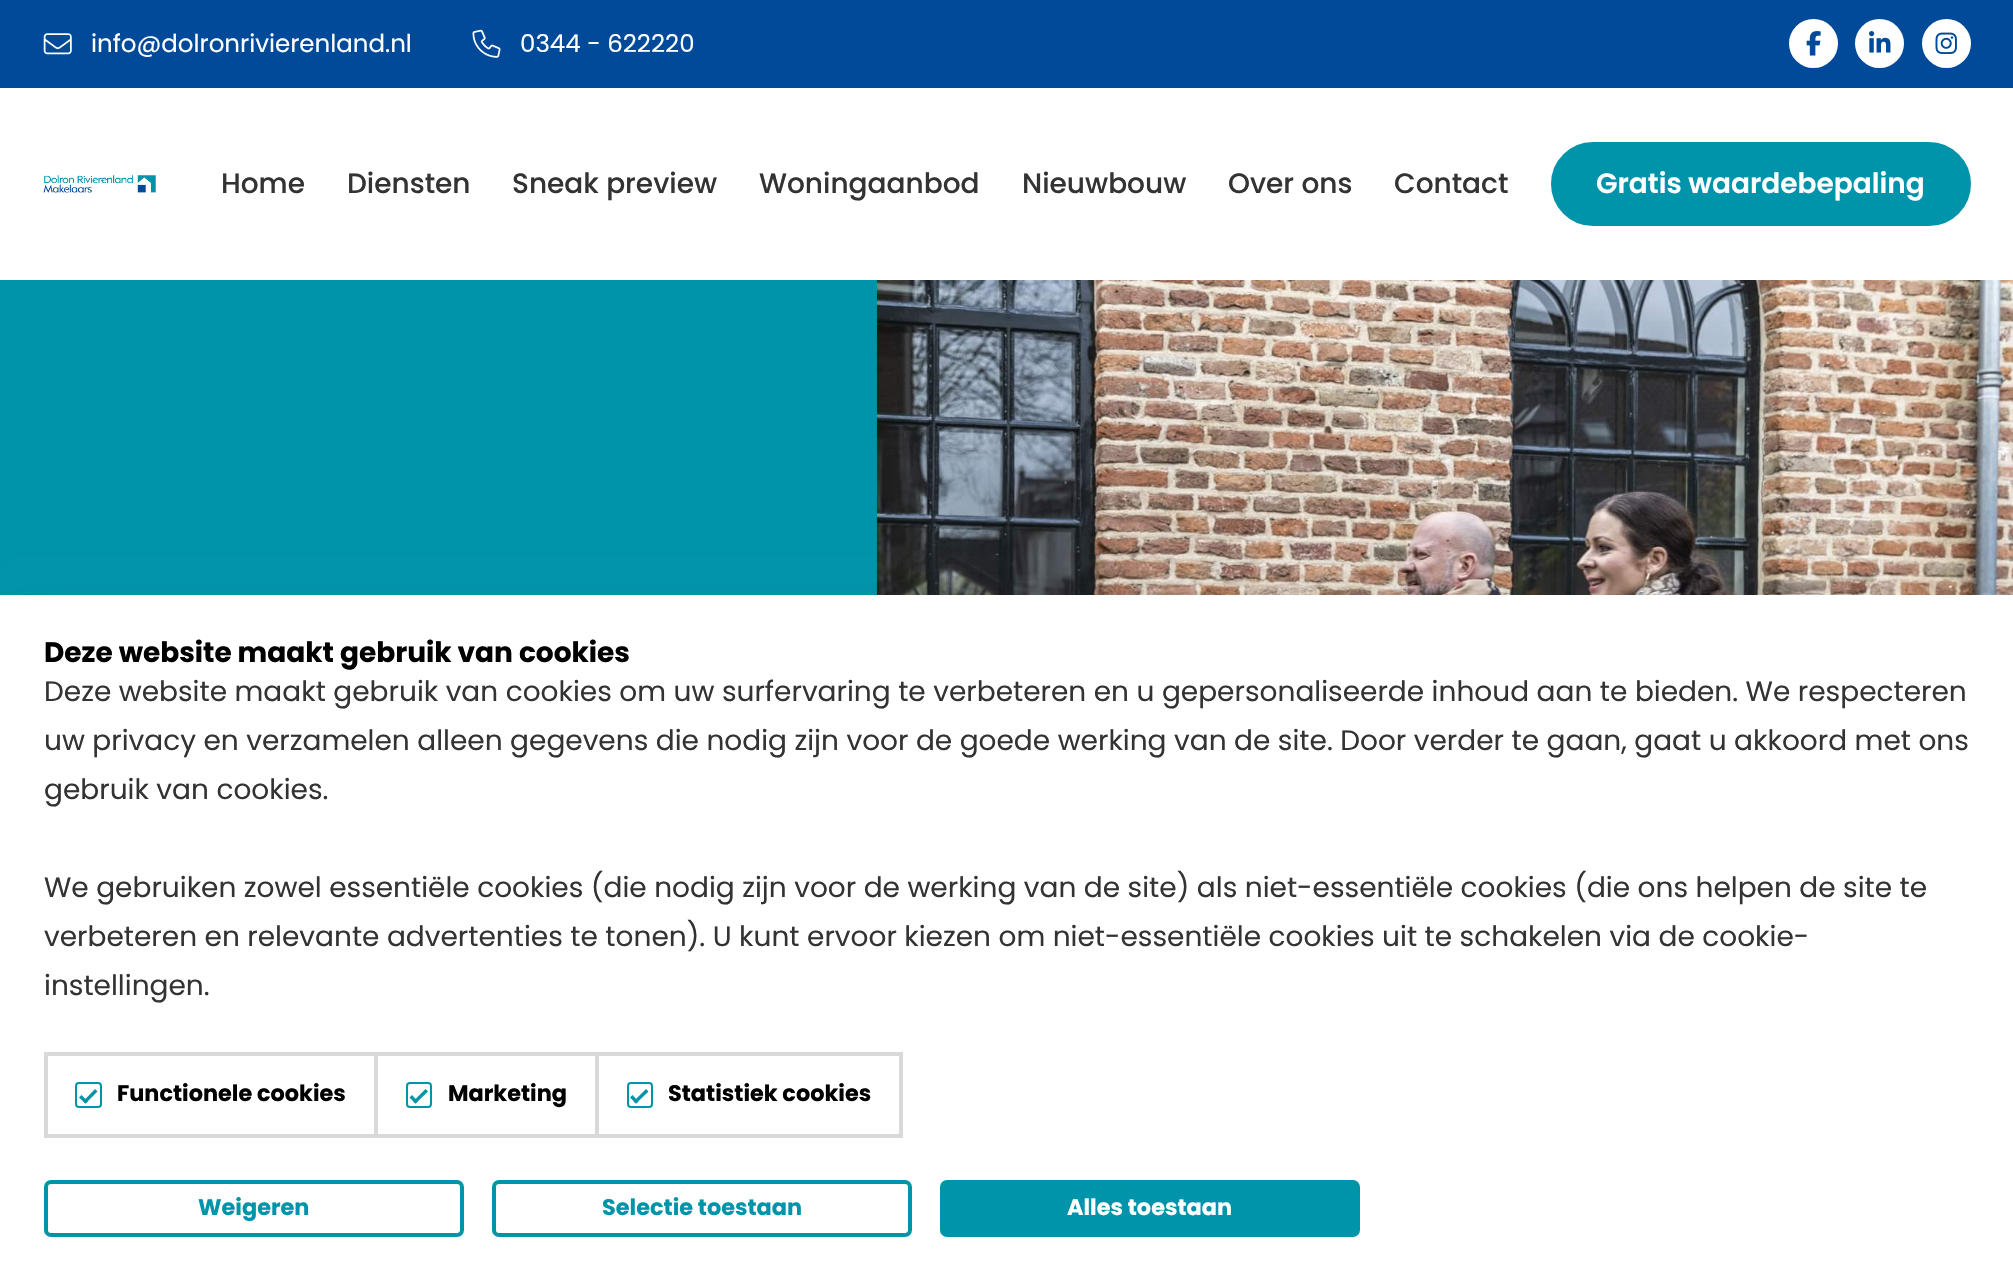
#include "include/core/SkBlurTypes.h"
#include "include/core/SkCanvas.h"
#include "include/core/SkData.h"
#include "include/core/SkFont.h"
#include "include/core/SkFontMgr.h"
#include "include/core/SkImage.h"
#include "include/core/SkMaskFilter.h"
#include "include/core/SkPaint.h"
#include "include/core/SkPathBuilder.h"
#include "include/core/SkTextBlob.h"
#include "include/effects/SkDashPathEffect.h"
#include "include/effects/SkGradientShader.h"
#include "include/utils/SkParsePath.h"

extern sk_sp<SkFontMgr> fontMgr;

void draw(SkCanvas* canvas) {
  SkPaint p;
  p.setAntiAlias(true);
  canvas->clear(SK_ColorWHITE);
  p.setColor(SkColorSetRGB(0, 74, 153));
  canvas->drawRect(SkRect::MakeLTRB(0, 0, 2013, 88), p);
  canvas->drawImageRect(SkImages::DeferredFromEncodedData(SkData::MakeFromFileName("images/1.png")), SkRect::MakeLTRB(43, 33, 72, 55), SkSamplingOptions());
  canvas->drawImageRect(SkImages::DeferredFromEncodedData(SkData::MakeFromFileName("images/2.png")), SkRect::MakeLTRB(472, 29, 501, 58), SkSamplingOptions());
  p.setColor(SK_ColorWHITE);
  canvas->drawCircle(1813.5f, 43.5f, 24.5f, p);
  canvas->drawImageRect(SkImages::DeferredFromEncodedData(SkData::MakeFromFileName("images/3.png")), SkRect::MakeLTRB(1806, 31, 1821, 56), SkSamplingOptions());
  canvas->drawCircle(1879.5f, 43.5f, 24.5f, p);
  canvas->drawImageRect(SkImages::DeferredFromEncodedData(SkData::MakeFromFileName("images/4.png")), SkRect::MakeLTRB(1869, 31, 1891, 53), SkSamplingOptions());
  canvas->drawCircle(1946.5f, 43.5f, 24.5f, p);
  canvas->drawImageRect(SkImages::DeferredFromEncodedData(SkData::MakeFromFileName("images/5.png")), SkRect::MakeLTRB(1935, 32, 1957, 54), SkSamplingOptions());
  canvas->drawImageRect(SkImages::DeferredFromEncodedData(SkData::MakeFromFileName("images/6.png")), SkRect::MakeLTRB(43, 175, 156, 193), SkSamplingOptions());
  p.setColor(SkColorSetRGB(0, 148, 170));
  canvas->drawRoundRect(SkRect::MakeLTRB(1552, 143, 1970, 225), 41, 41, p);
  p.setStyle(SkPaint::kStroke_Style);
  p.setStrokeWidth(2);
  canvas->drawRoundRect(SkRect::MakeLTRB(1552, 143, 1970, 225), 41, 41, p);
  p.setStyle(SkPaint::kFill_Style);
  canvas->drawRect(SkRect::MakeLTRB(0, 280, 877, 595), p);
  canvas->drawImageRect(SkImages::DeferredFromEncodedData(SkData::MakeFromFileName("images/7.png")), SkRect::MakeLTRB(876, 280, 2013, 595), SkSamplingOptions());
  p.setColor(SkColorSetARGB(64, 50, 50, 93));
  p.setMaskFilter(SkMaskFilter::MakeBlur(kNormal_SkBlurStyle, 23.5f));
  canvas->drawRect(SkRect::MakeLTRB(9, 627, 2006, 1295), p);
  p.setMaskFilter(nullptr);
  p.setColor(SK_ColorWHITE);
  canvas->drawRect(SkRect::MakeLTRB(0, 595, 2013, 1280), p);
  p.setStyle(SkPaint::kStroke_Style);
  p.setStrokeWidth(4);
  p.setColor(SkColorSetRGB(217, 217, 217));
  canvas->drawRect(SkRect::MakeLTRB(46, 1054, 376, 1136), p);
  p.setStrokeWidth(2);
  p.setColor(SkColorSetRGB(0, 148, 170));
  canvas->drawRoundRect(SkRect::MakeLTRB(76, 1083, 101, 1107), 3, 3, p);
  p.setStyle(SkPaint::kFill_Style);
  canvas->drawPath(SkPathBuilder().moveTo(95, 1089).lineTo(97.5f, 1091.5f).lineTo(85.5f, 1103.5f).lineTo(83, 1101.5f).close().detach(), p);
  canvas->drawPath(SkPathBuilder().moveTo(81.5f, 1095).lineTo(88, 1101.5f).lineTo(85.5f, 1103.5f).lineTo(79, 1097.5f).close().detach(), p);
  p.setColor(SkColorSetRGB(217, 217, 217));
  canvas->drawRect(SkRect::MakeLTRB(378, 1052, 595, 1056), p);
  canvas->drawRect(SkRect::MakeLTRB(378, 1134, 595, 1138), p);
  p.setStyle(SkPaint::kStroke_Style);
  p.setColor(SkColorSetRGB(0, 148, 170));
  canvas->drawRoundRect(SkRect::MakeLTRB(407, 1083, 431, 1107), 3, 3, p);
  p.setStyle(SkPaint::kFill_Style);
  canvas->drawPath(SkPathBuilder().moveTo(425.5f, 1089).lineTo(428, 1091.5f).lineTo(415.5f, 1103.5f).lineTo(413, 1101.5f).close().detach(), p);
  canvas->drawPath(SkPathBuilder().moveTo(412, 1095).lineTo(418, 1101.5f).lineTo(415.5f, 1103.5f).lineTo(409.5f, 1097.5f).close().detach(), p);
  p.setStyle(SkPaint::kStroke_Style);
  p.setStrokeWidth(4);
  p.setColor(SkColorSetRGB(217, 217, 217));
  canvas->drawRect(SkRect::MakeLTRB(597, 1054, 901, 1136), p);
  p.setStrokeWidth(2);
  p.setColor(SkColorSetRGB(0, 148, 170));
  canvas->drawRoundRect(SkRect::MakeLTRB(628, 1083, 652, 1107), 3, 3, p);
  p.setStyle(SkPaint::kFill_Style);
  canvas->drawPath(SkPathBuilder().moveTo(646, 1089).lineTo(648.5f, 1091.5f).lineTo(636, 1103.5f).lineTo(633.5f, 1101.5f).close().detach(), p);
  canvas->drawPath(SkPathBuilder().moveTo(632.5f, 1095).lineTo(638.5f, 1101.5f).lineTo(636, 1103.5f).lineTo(630, 1097.5f).close().detach(), p);
  p.setStyle(SkPaint::kStroke_Style);
  p.setStrokeWidth(4);
  canvas->drawRoundRect(SkRect::MakeLTRB(46, 1182, 462, 1235), 5, 5, p);
  canvas->drawRoundRect(SkRect::MakeLTRB(494, 1182, 910, 1235), 5, 5, p);
  p.setStyle(SkPaint::kFill_Style);
  canvas->drawRoundRect(SkRect::MakeLTRB(942, 1182, 1358, 1235), 5, 5, p);
  p.setStyle(SkPaint::kStroke_Style);
  canvas->drawRoundRect(SkRect::MakeLTRB(942, 1182, 1358, 1235), 5, 5, p);
  SkFont font1(fontMgr->matchFamilyStyle("Poppins", SkFontStyle::Normal()), 24.5f);
  font1.setSubpixel(true);
  p.setStyle(SkPaint::kFill_Style);
  p.setColor(SK_ColorWHITE);
  canvas->drawString("info@dolronrivierenland.nl", 91, 52, font1, p);
  canvas->drawString("0344 - 622220", 520, 52, font1, p);
  SkFont font2(fontMgr->matchFamilyStyle("Poppins", SkFontStyle(500, SkFontStyle::kNormal_Width, SkFontStyle::kUpright_Slant)), 28);
  font2.setSubpixel(true);
  p.setColor(SkColorSetRGB(51, 51, 51));
  canvas->drawString("Home", 221, 193, font2, p);
  canvas->drawString("Diensten", 347, 193, font2, p);
  canvas->drawString("Sneak preview", 512, 193, font2, p);
  canvas->drawString("Woningaanbod", 759, 193, font2, p);
  canvas->drawString("Nieuwbouw", 1022, 193, font2, p);
  canvas->drawString("Over ons", 1228, 193, font2, p);
  canvas->drawString("Contact", 1394, 193, font2, p);
  SkFont font3(fontMgr->matchFamilyStyle("Poppins", SkFontStyle(600, SkFontStyle::kNormal_Width, SkFontStyle::kUpright_Slant)), 28);
  font3.setSubpixel(true);
  p.setColor(SK_ColorWHITE);
  canvas->drawString("Gratis waardebepaling", 1596, 193, font3, p);
  SkFont font4(fontMgr->matchFamilyStyle("Poppins", SkFontStyle::Bold()), 28);
  font4.setSubpixel(true);
  p.setColor(SK_ColorBLACK);
  canvas->drawString("Deze website maakt gebruik van cookies", 44, 662, font4, p);
  SkFont font5(fontMgr->matchFamilyStyle("Poppins", SkFontStyle::Normal()), 28);
  font5.setSubpixel(true);
  p.setColor(SkColorSetRGB(51, 51, 51));
  canvas->drawString("Deze website maakt gebruik van cookies om uw surfervaring te verbeteren en u gepersonaliseerde inhoud aan te bieden. We respecteren", 44, 701, font5, p);
  canvas->drawString("uw privacy en verzamelen alleen gegevens die nodig zijn voor de goede werking van de site. Door verder te gaan, gaat u akkoord met ons", 44, 750, font5, p);
  canvas->drawString("gebruik van cookies.", 44, 799, font5, p);
  canvas->drawString("We gebruiken zowel essentiële cookies (die nodig zijn voor de werking van de site) als niet-essentiële cookies (die ons helpen de site te", 44, 897, font5, p);
  canvas->drawString("verbeteren en relevante advertenties te tonen). U kunt ervoor kiezen om niet-essentiële cookies uit te schakelen via de cookie-", 44, 946, font5, p);
  canvas->drawString("instellingen.", 44, 995, font5, p);
  SkFont font6(fontMgr->matchFamilyStyle("Poppins", SkFontStyle::Bold()), 22.4f);
  font6.setSubpixel(true);
  p.setColor(SK_ColorBLACK);
  canvas->drawString("Functionele cookies", 117, 1101, font6, p);
  canvas->drawString("Marketing", 448, 1101, font6, p);
  canvas->drawString("Statistiek cookies", 668, 1101, font6, p);
  p.setColor(SkColorSetRGB(0, 148, 170));
  canvas->drawString("Weigeren", 198, 1215, font6, p);
  canvas->drawString("Selectie toestaan", 602, 1215, font6, p);
  p.setColor(SK_ColorWHITE);
  canvas->drawString("Alles toestaan", 1067, 1215, font6, p);
}
